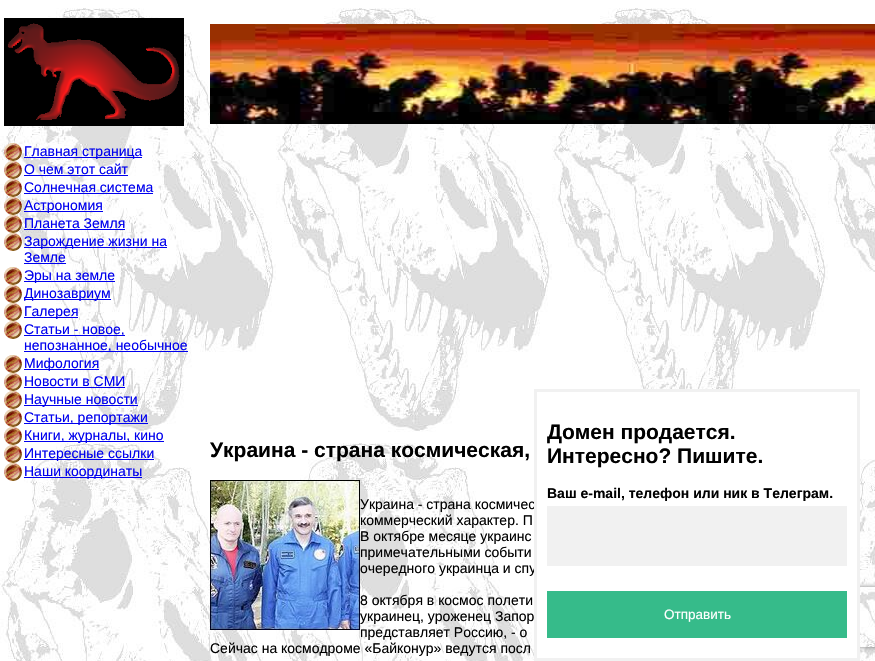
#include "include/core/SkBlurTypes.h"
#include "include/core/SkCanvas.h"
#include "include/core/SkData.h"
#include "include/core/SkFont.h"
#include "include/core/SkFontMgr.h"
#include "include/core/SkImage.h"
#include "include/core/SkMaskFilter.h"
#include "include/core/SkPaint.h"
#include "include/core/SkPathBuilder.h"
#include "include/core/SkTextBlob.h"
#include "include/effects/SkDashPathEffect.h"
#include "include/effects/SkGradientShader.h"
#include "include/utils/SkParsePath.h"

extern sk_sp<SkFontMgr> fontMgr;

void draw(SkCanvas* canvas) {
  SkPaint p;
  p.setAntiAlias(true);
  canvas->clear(SK_ColorWHITE);
  canvas->drawImageRect(SkImages::DeferredFromEncodedData(SkData::MakeFromFileName("images/1.png")), SkRect::MakeLTRB(0, 8, 875, 661), SkSamplingOptions());
  canvas->drawImageRect(SkImages::DeferredFromEncodedData(SkData::MakeFromFileName("images/2.png")), SkRect::MakeLTRB(4, 18, 184, 126), SkSamplingOptions());
  canvas->drawImageRect(SkImages::DeferredFromEncodedData(SkData::MakeFromFileName("images/3.png")), SkRect::MakeLTRB(4, 143, 22, 161), SkSamplingOptions());
  p.setColor(SkColorSetRGB(0, 0, 238));
  canvas->drawRect(SkRect::MakeLTRB(24, 157, 142, 158), p);
  canvas->drawImageRect(SkImages::DeferredFromEncodedData(SkData::MakeFromFileName("images/4.png")), SkRect::MakeLTRB(4, 161, 22, 179), SkSamplingOptions());
  canvas->drawRect(SkRect::MakeLTRB(24, 175, 128, 176), p);
  canvas->drawImageRect(SkImages::DeferredFromEncodedData(SkData::MakeFromFileName("images/5.png")), SkRect::MakeLTRB(4, 179, 22, 197), SkSamplingOptions());
  canvas->drawRect(SkRect::MakeLTRB(24, 193, 153, 194), p);
  canvas->drawImageRect(SkImages::DeferredFromEncodedData(SkData::MakeFromFileName("images/6.png")), SkRect::MakeLTRB(4, 197, 22, 215), SkSamplingOptions());
  canvas->drawRect(SkRect::MakeLTRB(24, 211, 103, 212), p);
  canvas->drawImageRect(SkImages::DeferredFromEncodedData(SkData::MakeFromFileName("images/7.png")), SkRect::MakeLTRB(4, 215, 22, 233), SkSamplingOptions());
  canvas->drawRect(SkRect::MakeLTRB(24, 229, 125, 230), p);
  canvas->drawImageRect(SkImages::DeferredFromEncodedData(SkData::MakeFromFileName("images/8.png")), SkRect::MakeLTRB(4, 233, 22, 251), SkSamplingOptions());
  canvas->drawRect(SkRect::MakeLTRB(24, 247, 167, 248), p);
  canvas->drawRect(SkRect::MakeLTRB(24, 263, 66, 264), p);
  canvas->drawImageRect(SkImages::DeferredFromEncodedData(SkData::MakeFromFileName("images/9.png")), SkRect::MakeLTRB(4, 267, 22, 285), SkSamplingOptions());
  canvas->drawRect(SkRect::MakeLTRB(24, 281, 115, 282), p);
  canvas->drawImageRect(SkImages::DeferredFromEncodedData(SkData::MakeFromFileName("images/9.png")), SkRect::MakeLTRB(4, 285, 22, 303), SkSamplingOptions());
  canvas->drawRect(SkRect::MakeLTRB(24, 299, 111, 300), p);
  canvas->drawImageRect(SkImages::DeferredFromEncodedData(SkData::MakeFromFileName("images/9.png")), SkRect::MakeLTRB(4, 303, 22, 321), SkSamplingOptions());
  canvas->drawRect(SkRect::MakeLTRB(24, 317, 78, 318), p);
  canvas->drawImageRect(SkImages::DeferredFromEncodedData(SkData::MakeFromFileName("images/9.png")), SkRect::MakeLTRB(4, 321, 22, 339), SkSamplingOptions());
  canvas->drawRect(SkRect::MakeLTRB(24, 335, 125, 336), p);
  canvas->drawRect(SkRect::MakeLTRB(24, 351, 188, 352), p);
  canvas->drawImageRect(SkImages::DeferredFromEncodedData(SkData::MakeFromFileName("images/9.png")), SkRect::MakeLTRB(4, 355, 22, 373), SkSamplingOptions());
  canvas->drawRect(SkRect::MakeLTRB(24, 369, 99, 370), p);
  canvas->drawImageRect(SkImages::DeferredFromEncodedData(SkData::MakeFromFileName("images/9.png")), SkRect::MakeLTRB(4, 373, 22, 391), SkSamplingOptions());
  canvas->drawRect(SkRect::MakeLTRB(24, 387, 125, 388), p);
  canvas->drawImageRect(SkImages::DeferredFromEncodedData(SkData::MakeFromFileName("images/9.png")), SkRect::MakeLTRB(4, 391, 22, 409), SkSamplingOptions());
  canvas->drawRect(SkRect::MakeLTRB(24, 405, 138, 406), p);
  canvas->drawImageRect(SkImages::DeferredFromEncodedData(SkData::MakeFromFileName("images/9.png")), SkRect::MakeLTRB(4, 409, 22, 427), SkSamplingOptions());
  canvas->drawRect(SkRect::MakeLTRB(24, 423, 148, 424), p);
  canvas->drawImageRect(SkImages::DeferredFromEncodedData(SkData::MakeFromFileName("images/9.png")), SkRect::MakeLTRB(4, 427, 22, 445), SkSamplingOptions());
  canvas->drawRect(SkRect::MakeLTRB(24, 441, 164, 442), p);
  canvas->drawImageRect(SkImages::DeferredFromEncodedData(SkData::MakeFromFileName("images/9.png")), SkRect::MakeLTRB(4, 445, 22, 463), SkSamplingOptions());
  canvas->drawRect(SkRect::MakeLTRB(24, 459, 154, 460), p);
  canvas->drawImageRect(SkImages::DeferredFromEncodedData(SkData::MakeFromFileName("images/9.png")), SkRect::MakeLTRB(4, 463, 22, 481), SkSamplingOptions());
  canvas->drawRect(SkRect::MakeLTRB(24, 477, 142, 478), p);
  canvas->drawImageRect(SkImages::DeferredFromEncodedData(SkData::MakeFromFileName("images/10.png")), SkRect::MakeLTRB(210, 24, 875, 124), SkSamplingOptions());
  canvas->drawImageRect(SkImages::DeferredFromEncodedData(SkData::MakeFromFileName("images/11.png")), SkRect::MakeLTRB(210, 480, 360, 630), SkSamplingOptions());
  canvas->save();
  canvas->clipPath(SkPathBuilder(SkPathFillType::kEvenOdd).moveTo(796, 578).lineTo(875, 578).lineTo(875, 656).lineTo(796, 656).close().moveTo(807, 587).lineTo(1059, 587).cubicTo(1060, 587, 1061, 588, 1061, 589).lineTo(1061, 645).cubicTo(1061, 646, 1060, 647, 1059, 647).lineTo(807, 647).cubicTo(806, 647, 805, 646, 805, 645).lineTo(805, 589).cubicTo(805, 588, 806, 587, 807, 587).close().detach(), true);
  p.setColor(SkColorSetRGB(128, 128, 128));
  p.setMaskFilter(SkMaskFilter::MakeBlur(kNormal_SkBlurStyle, 2.5f));
  canvas->drawRoundRect(SkRect::MakeLTRB(805, 587, 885, 647), 2, 2, p);
  p.setMaskFilter(nullptr);
  canvas->restore();
  SkFont font1(fontMgr->matchFamilyStyle("Liberation Sans", SkFontStyle::Normal()), 14);
  font1.setSubpixel(true);
  p.setColor(SkColorSetRGB(0, 0, 238));
  canvas->drawString("Главная страница", 24, 156, font1, p);
  canvas->drawString("О чем этот сайт", 24, 174, font1, p);
  canvas->drawString("Солнечная система", 24, 192, font1, p);
  canvas->drawString("Астрономия", 24, 210, font1, p);
  canvas->drawString("Планета Земля", 24, 228, font1, p);
  canvas->drawString("Зарождение жизни на", 24, 246, font1, p);
  canvas->drawString("Земле", 24, 262, font1, p);
  canvas->drawString("Эры на земле", 24, 280, font1, p);
  canvas->drawString("Динозавриум", 24, 298, font1, p);
  canvas->drawString("Галерея", 24, 316, font1, p);
  canvas->drawString("Статьи - новое,", 24, 334, font1, p);
  canvas->drawString("непознанное, необычное", 24, 350, font1, p);
  canvas->drawString("Мифология", 24, 368, font1, p);
  canvas->drawString("Новости в СМИ", 24, 386, font1, p);
  canvas->drawString("Научные новости", 24, 404, font1, p);
  canvas->drawString("Статьи, репортажи", 24, 422, font1, p);
  canvas->drawString("Книги, журналы, кино", 24, 440, font1, p);
  canvas->drawString("Интересные ссылки", 24, 458, font1, p);
  canvas->drawString("Наши координаты", 24, 476, font1, p);
  SkFont font2(fontMgr->matchFamilyStyle("Liberation Sans", SkFontStyle::Bold()), 21);
  font2.setSubpixel(true);
  p.setColor(SK_ColorBLACK);
  canvas->drawString("Украина - страна космическая,", 210, 457, font2, p);
  canvas->drawString("Украина - страна космичес", 360, 509, font1, p);
  canvas->drawString("коммерческий характер. П", 360, 525, font1, p);
  canvas->drawString("В октябре месяце украинс", 360, 541, font1, p);
  canvas->drawString("примечательными событи", 360, 557, font1, p);
  canvas->drawString("очередного украинца и спу", 360, 573, font1, p);
  canvas->drawString("8 октября в космос полети", 360, 605, font1, p);
  canvas->drawString("украинец, уроженец Запор", 360, 621, font1, p);
  canvas->drawString("представляет Россию, - о", 360, 637, font1, p);
  canvas->drawString("Сейчас на космодроме «Байконур» ведутся посл", 210, 653, font1, p);
  p.setStyle(SkPaint::kStroke_Style);
  p.setStrokeWidth(3);
  p.setColor(SkColorSetRGB(241, 241, 241));
  canvas->drawRect(SkRect::MakeLTRB(535.5f, 390.5f, 858.5f, 659.5f), p);
  p.setStyle(SkPaint::kFill_Style);
  p.setColor(SK_ColorWHITE);
  canvas->drawRect(SkRect::MakeLTRB(537, 392, 857, 658), p);
  p.setColor(SK_ColorBLACK);
  canvas->drawString("Домен продается.", 547, 439, font2, p);
  canvas->drawString("Интересно? Пишите.", 547, 463, font2, p);
  SkFont font3(fontMgr->matchFamilyStyle("Liberation Sans", SkFontStyle::Bold()), 14);
  font3.setSubpixel(true);
  canvas->drawString("Ваш e-mail, телефон или ник в Телеграм.", 547, 498, font3, p);
  p.setColor(SkColorSetRGB(241, 241, 241));
  canvas->drawRect(SkRect::MakeLTRB(547, 506, 847, 566), p);
  p.setColor(SkColorSetRGB(54, 187, 138));
  canvas->drawRect(SkRect::MakeLTRB(547, 591, 847, 638), p);
  SkFont font4(fontMgr->matchFamilyStyle("Liberation Sans", SkFontStyle::Normal()), 13.5f);
  font4.setSubpixel(true);
  p.setColor(SK_ColorWHITE);
  canvas->drawString("Отправить", 664, 619, font4, p);
}
